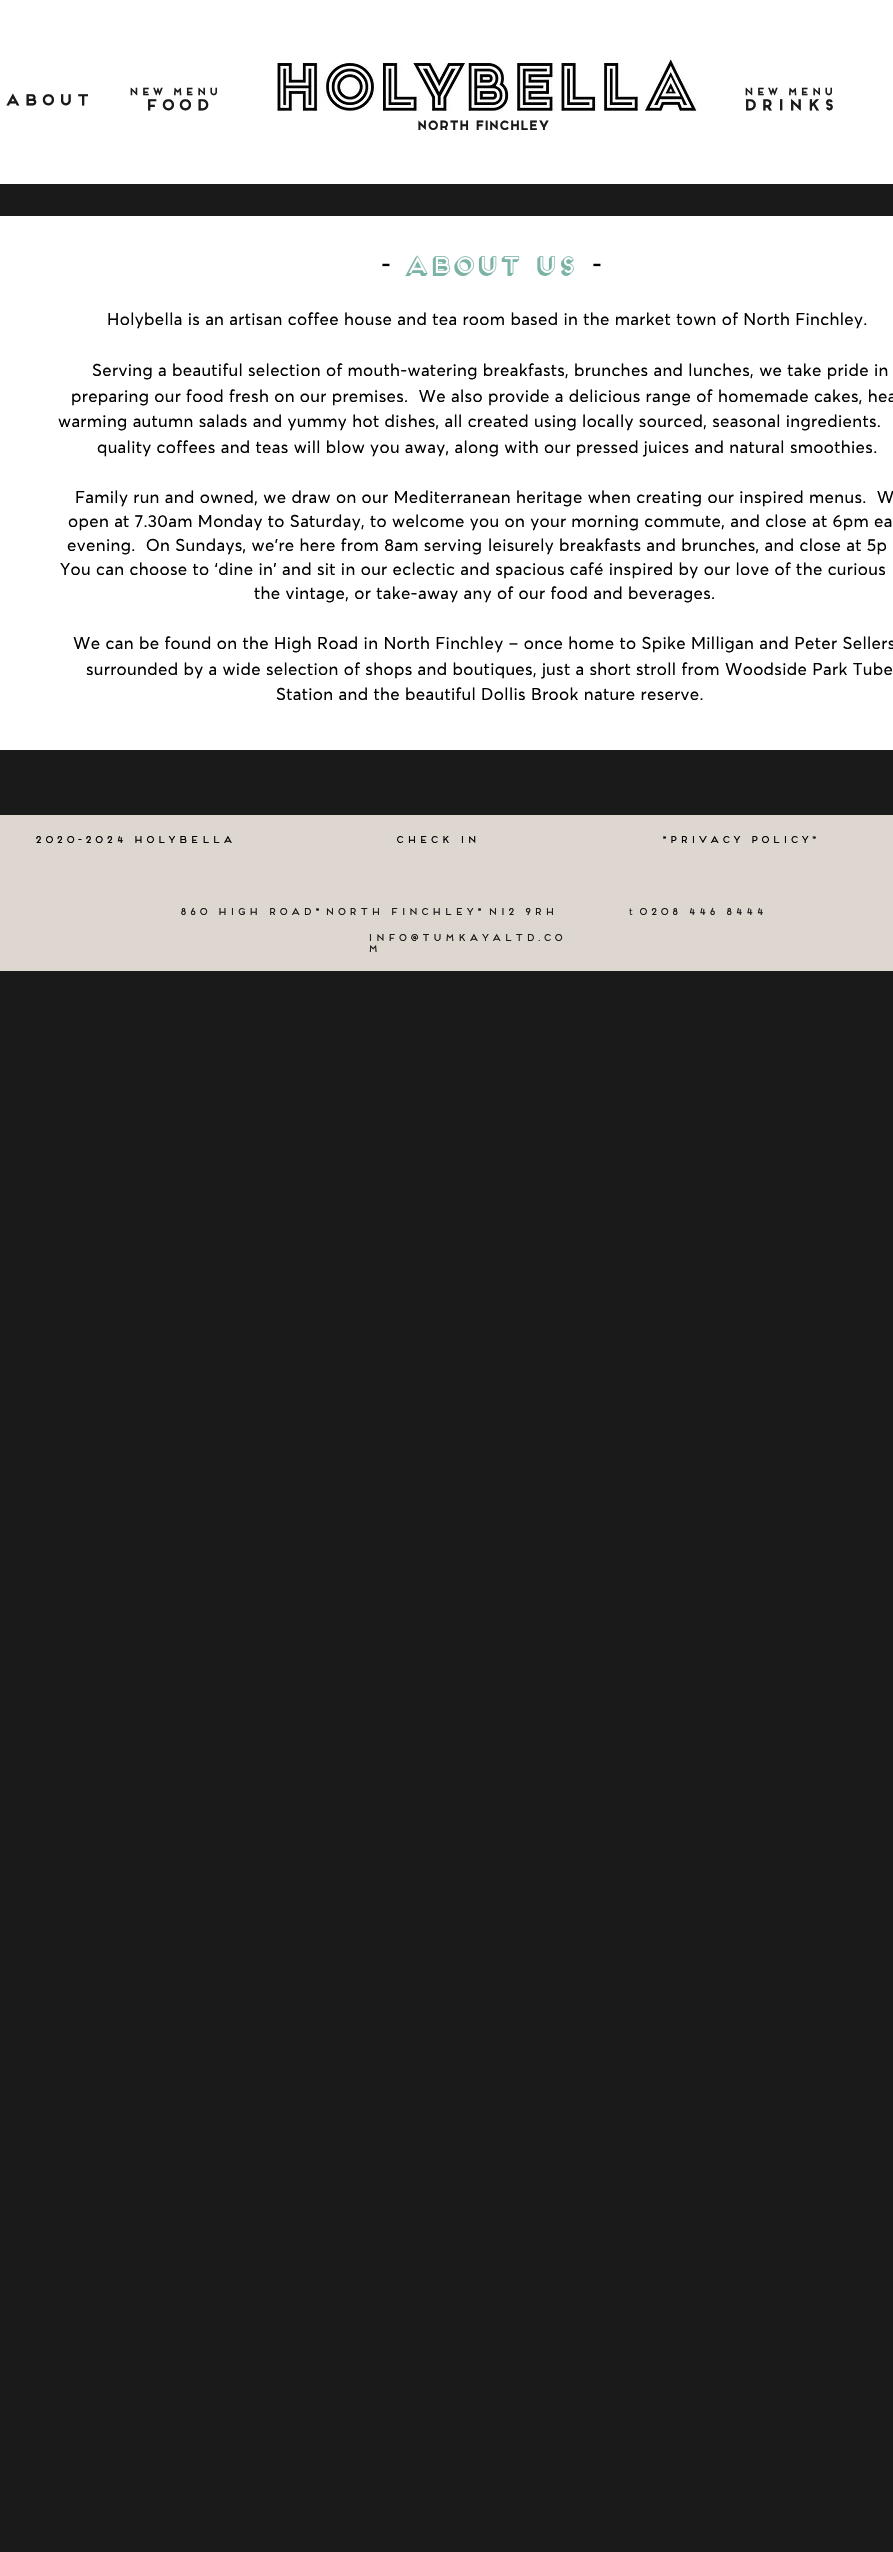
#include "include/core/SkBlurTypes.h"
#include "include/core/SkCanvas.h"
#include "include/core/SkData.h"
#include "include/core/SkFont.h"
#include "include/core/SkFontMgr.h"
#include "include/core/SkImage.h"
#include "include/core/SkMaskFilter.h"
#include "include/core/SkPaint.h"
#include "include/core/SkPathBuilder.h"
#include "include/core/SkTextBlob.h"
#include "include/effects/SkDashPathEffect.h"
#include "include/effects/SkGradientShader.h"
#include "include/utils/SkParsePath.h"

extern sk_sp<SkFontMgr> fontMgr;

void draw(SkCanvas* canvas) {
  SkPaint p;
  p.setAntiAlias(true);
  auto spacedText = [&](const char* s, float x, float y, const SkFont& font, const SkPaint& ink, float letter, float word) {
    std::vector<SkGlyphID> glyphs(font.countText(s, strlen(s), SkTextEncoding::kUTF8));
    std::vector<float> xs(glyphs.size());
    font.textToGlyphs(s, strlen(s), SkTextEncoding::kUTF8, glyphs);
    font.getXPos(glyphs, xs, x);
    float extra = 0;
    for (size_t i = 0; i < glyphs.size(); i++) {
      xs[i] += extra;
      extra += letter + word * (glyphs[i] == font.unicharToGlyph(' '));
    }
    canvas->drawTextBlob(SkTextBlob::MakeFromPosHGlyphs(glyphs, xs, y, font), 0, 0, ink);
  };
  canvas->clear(SkColorSetRGB(26, 26, 26));
  p.setColor(SK_ColorWHITE);
  canvas->drawRect(SkRect::MakeLTRB(0, 0, 893, 184), p);
  canvas->drawImageRect(SkImages::DeferredFromEncodedData(SkData::MakeFromFileName("images/1.png")), SkRect::MakeLTRB(277, 59, 698, 116), SkSamplingOptions());
  canvas->drawRect(SkRect::MakeLTRB(0, 216, 893, 750), p);
  p.setColor(SkColorSetRGB(222, 215, 207));
  canvas->drawRect(SkRect::MakeLTRB(0, 815, 893, 971), p);
  SkFont font1(fontMgr->matchFamilyStyle("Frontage", SkFontStyle::Bold()), 15);
  font1.setSubpixel(true);
  p.setColor(SkColorSetRGB(26, 26, 26));
  spacedText("ABOUT", 4, 105, font1, p, 2.25f, 0);
  SkFont font2(fontMgr->matchFamilyStyle("Frontage", SkFontStyle::Bold()), 10);
  font2.setSubpixel(true);
  spacedText("NEW MENU", 128, 95, font2, p, 1.5f, 0);
  spacedText("FOOD", 144, 110, font1, p, 2.25f, 0);
  spacedText("NEW MENU", 743, 95, font2, p, 1.5f, 0);
  spacedText("drinks", 742, 110, font1, p, 2.25f, 0);
  SkFont font3(fontMgr->matchFamilyStyle("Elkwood", SkFontStyle::Normal()), 18);
  font3.setSubpixel(true);
  spacedText("NORTH FINCHLEY", 418, 130, font3, p, 1.6f, 0);
  SkFont font4(fontMgr->matchFamilyStyle("Frontage", SkFontStyle::Normal()), 23);
  font4.setSubpixel(true);
  p.setColor(SK_ColorBLACK);
  canvas->drawString("-", 378, 273, font4, p);
  SkFont font5(fontMgr->matchFamilyStyle("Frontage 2", SkFontStyle::Normal()), 23);
  font5.setSubpixel(true);
  p.setColor(SkColorSetRGB(123, 179, 167));
  canvas->drawString("ABOUT US", 404, 273, font5, p);
  p.setColor(SK_ColorBLACK);
  canvas->drawString("-", 589, 273, font4, p);
  SkFont font6(fontMgr->matchFamilyStyle("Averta", SkFontStyle::Normal()), 17);
  font6.setSubpixel(true);
  spacedText("Holybella is an artisan coffee house and tea room based in the market town of North Finchley.", 107, 325, font6, p, 0.34f, 0);
  spacedText("Serving a beautiful selection of mouth-watering breakfasts, brunches and lunches, we take pride in", 92, 376, font6, p, 0.34f, 0);
  spacedText("preparing our food fresh on our premises.  We also provide a delicious range of homemade cakes, hea", 71, 402, font6, p, 0.34f, 0);
  spacedText("warming autumn salads and yummy hot dishes, all created using locally sourced, seasonal ingredients.", 58, 427, font6, p, 0.34f, 0);
  spacedText("quality coffees and teas will blow you away, along with our pressed juices and natural smoothies.", 97, 453, font6, p, 0.34f, 0);
  spacedText("Family run and owned, we draw on our Mediterranean heritage when creating our inspired menus.  W", 75, 503, font6, p, 0.34f, 0);
  spacedText("open at 7.30am Monday to Saturday, to welcome you on your morning commute, and close at 6pm ea", 68, 527, font6, p, 0.34f, 0);
  spacedText("evening.  On Sundays, we're here from 8am serving", 67, 551, font6, p, 0.34f, 0);
  spacedText("leisurely", 488, 551, font6, p, 0.25f, 0);
  spacedText("breakfasts and brunches, and close at 5p", 559, 551, font6, p, 0.34f, 0);
  spacedText("You can choose to ‘dine in’ and sit in our eclectic and spacious café inspired by our love of the curious", 60, 575, font6, p, 0.34f, 0);
  spacedText("the vintage, or take-away any of our food and beverages.", 254, 599, font6, p, 0.34f, 0);
  spacedText("We can be found on the High Road in North Finchley – once home to Spike Milligan and Peter Sellers", 73, 649, font6, p, 0.34f, 0);
  spacedText("surrounded by a wide selection of shops and boutiques, just a short stroll from Woodside Park Tube", 86, 675, font6, p, 0.34f, 0);
  spacedText("Station and the beautiful Dollis Brook nature reserve.", 276, 700, font6, p, 0.34f, 0);
  SkFont font7(fontMgr->matchFamilyStyle("Frontage", SkFontStyle::Normal()), 10);
  font7.setSubpixel(true);
  spacedText("2020-2024 Holybella", 34, 843, font7, p, 1.5f, 0);
  spacedText("check in", 395, 843, font7, p, 1.5f, 0);
  spacedText("©PRIVACY POLICY©", 661, 843, font7, p, 1.5f, 0);
  p.setColor(SkColorSetRGB(26, 26, 26));
  spacedText("860 HIGH ROAD", 179, 915, font7, p, 1.5f, 0);
  p.setColor(SK_ColorBLACK);
  spacedText("©", 314, 915, font7, p, 5, 0);
  p.setColor(SkColorSetRGB(26, 26, 26));
  spacedText("NORTH FINCHLEY", 324, 915, font7, p, 1.5f, 0);
  p.setColor(SK_ColorBLACK);
  spacedText("©", 476, 915, font7, p, 5, 0);
  p.setColor(SkColorSetRGB(26, 26, 26));
  spacedText("N12 9rh", 487, 915, font7, p, 1.5f, 0);
  SkFont font8(fontMgr->matchFamilyStyle("Averta", SkFontStyle::Normal()), 10);
  font8.setSubpixel(true);
  spacedText("t", 629, 915, font8, p, 1.5f, 0);
  spacedText("0208 446 8444", 638, 915, font7, p, 1.5f, 0);
  spacedText("INFO@TUMKAYALTD.CO", 367, 941, font7, p, 1.5f, 0);
  spacedText("M", 367, 952, font7, p, 1.5f, 0);
}
